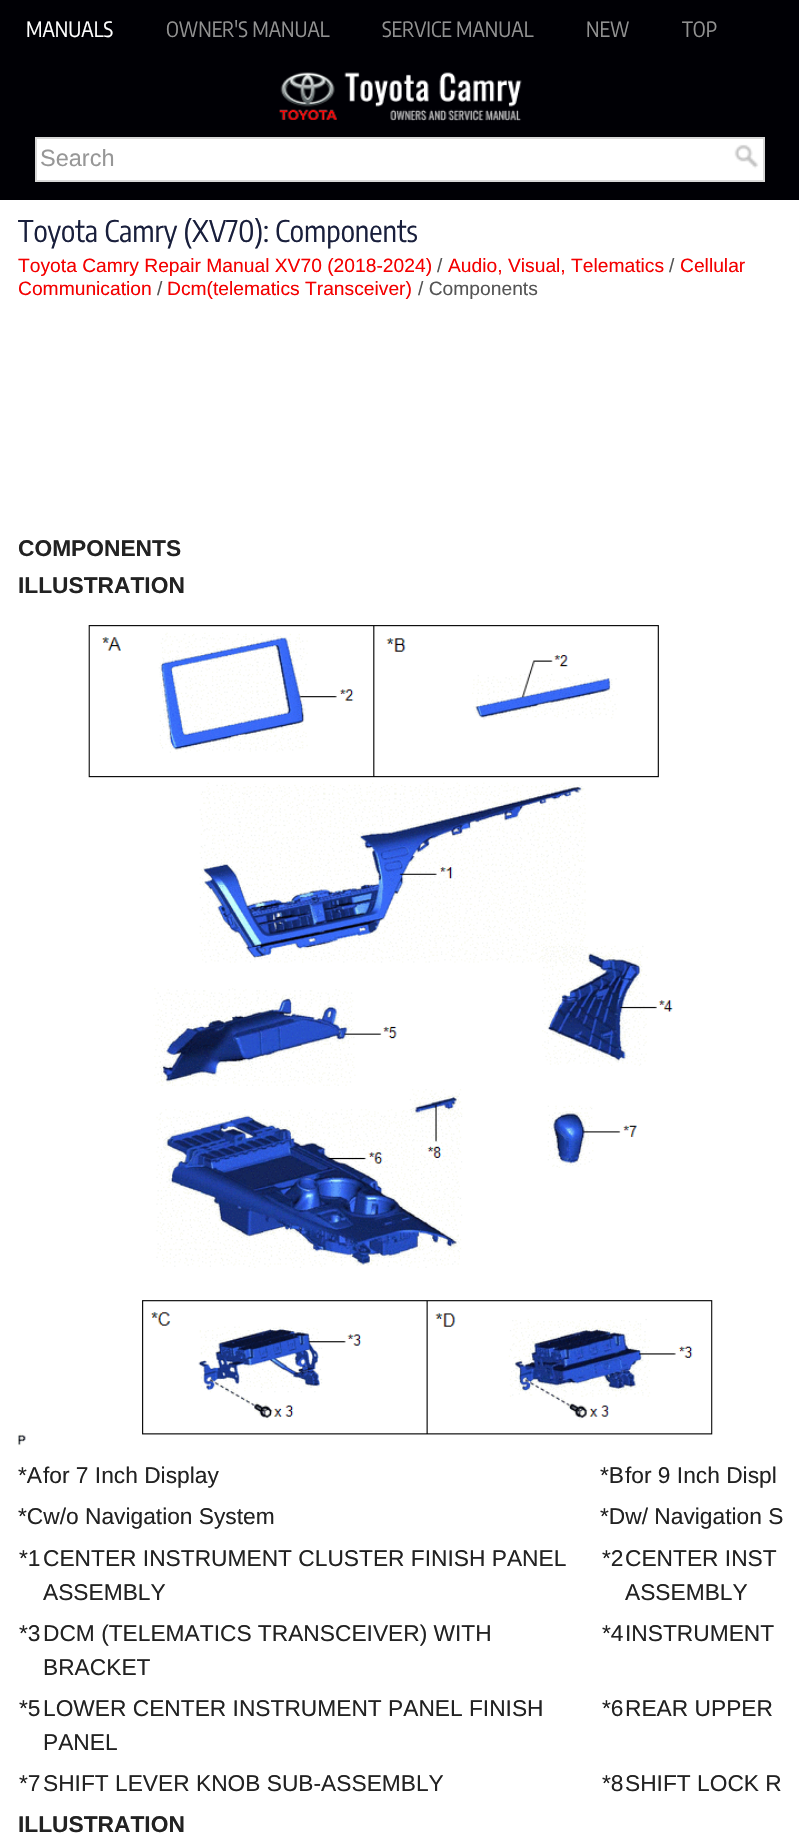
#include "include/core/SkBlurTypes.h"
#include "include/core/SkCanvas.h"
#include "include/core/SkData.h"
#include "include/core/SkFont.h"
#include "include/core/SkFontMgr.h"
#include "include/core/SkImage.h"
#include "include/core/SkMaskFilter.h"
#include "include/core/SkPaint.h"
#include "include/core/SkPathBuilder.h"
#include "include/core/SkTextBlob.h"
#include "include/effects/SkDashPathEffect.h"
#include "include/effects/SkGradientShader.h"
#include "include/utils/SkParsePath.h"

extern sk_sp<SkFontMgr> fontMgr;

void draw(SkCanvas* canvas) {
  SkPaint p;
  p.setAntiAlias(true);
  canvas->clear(SK_ColorWHITE);
  p.setColor(SkColorSetRGB(0, 0, 5));
  canvas->drawPath(SkPathBuilder(SkPathFillType::kEvenOdd).moveTo(-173, -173).lineTo(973, -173).lineTo(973, 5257).lineTo(-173, 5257).close().moveTo(18, 201).lineTo(782, 201).lineTo(782, 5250).lineTo(18, 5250).close().detach(), p);
  canvas->drawImageRect(SkImages::DeferredFromEncodedData(SkData::MakeFromFileName("images/1.png")), SkRect::MakeLTRB(279, 72, 522, 121), SkSamplingOptions());
  p.setColor(SK_ColorWHITE);
  canvas->drawRect(SkRect::MakeLTRB(36, 138, 764, 181), p);
  p.setStyle(SkPaint::kStroke_Style);
  p.setStrokeWidth(2);
  p.setColor(SkColorSetRGB(216, 216, 216));
  canvas->drawRect(SkRect::MakeLTRB(36, 138, 764, 181), p);
  canvas->drawImageRect(SkImages::DeferredFromEncodedData(SkData::MakeFromFileName("images/2.png")), SkRect::MakeLTRB(734, 144, 759, 169), SkSamplingOptions());
  p.setStyle(SkPaint::kFill_Style);
  p.setColor(SK_ColorWHITE);
  canvas->drawRect(SkRect::MakeLTRB(0, 200, 799, 1838), p);
  canvas->drawImageRect(SkImages::DeferredFromEncodedData(SkData::MakeFromFileName("images/3.png")), SkRect::MakeLTRB(17, 625, 713, 1446), SkSamplingOptions());
  SkFont font1(fontMgr->matchFamilyStyle("Encode Sans Condensed", SkFontStyle::Normal()), 21);
  font1.setSubpixel(true);
  canvas->drawString("MANUALS", 26, 37, font1, p);
  p.setColor(SkColorSetRGB(145, 145, 145));
  canvas->drawString("OWNER'S MANUAL", 166, 37, font1, p);
  canvas->drawString("SERVICE MANUAL", 382, 37, font1, p);
  canvas->drawString("NEW", 586, 37, font1, p);
  canvas->drawString("TOP", 682, 37, font1, p);
  SkFont font2(fontMgr->matchFamilyStyle("Liberation Sans", SkFontStyle::Normal()), 23.5f);
  font2.setSubpixel(true);
  p.setColor(SkColorSetRGB(151, 151, 151));
  canvas->drawString("Search", 40, 166, font2, p);
  SkFont font3(fontMgr->matchFamilyStyle("Encode Sans Condensed", SkFontStyle::Normal()), 29.75f);
  font3.setSubpixel(true);
  p.setColor(SkColorSetRGB(25, 31, 60));
  canvas->drawString("Toyota Camry (XV70): Components", 18, 242, font3, p);
  SkFont font4(fontMgr->matchFamilyStyle("Liberation Sans", SkFontStyle::Normal()), 19.25f);
  font4.setSubpixel(true);
  p.setColor(SkColorSetRGB(244, 0, 0));
  canvas->drawString("Toyota Camry Repair Manual XV70 (2018-2024)", 18, 272, font4, p);
  p.setColor(SkColorSetRGB(85, 85, 85));
  canvas->drawString("/", 437, 272, font4, p);
  p.setColor(SkColorSetRGB(244, 0, 0));
  canvas->drawString("Audio, Visual, Telematics", 448, 272, font4, p);
  p.setColor(SkColorSetRGB(85, 85, 85));
  canvas->drawString("/", 669, 272, font4, p);
  p.setColor(SkColorSetRGB(244, 0, 0));
  canvas->drawString("Cellular", 680, 272, font4, p);
  canvas->drawString("Communication", 18, 295, font4, p);
  p.setColor(SkColorSetRGB(85, 85, 85));
  canvas->drawString("/", 157, 295, font4, p);
  p.setColor(SkColorSetRGB(244, 0, 0));
  canvas->drawString("Dcm(telematics Transceiver)", 167, 295, font4, p);
  p.setColor(SkColorSetRGB(85, 85, 85));
  canvas->drawString("/ Components", 418, 295, font4, p);
  SkFont font5(fontMgr->matchFamilyStyle("Liberation Sans", SkFontStyle::Bold()), 22.75f);
  font5.setSubpixel(true);
  p.setColor(SkColorSetRGB(34, 34, 34));
  canvas->drawString("COMPONENTS", 18, 556, font5, p);
  canvas->drawString("ILLUSTRATION", 18, 593, font5, p);
  SkFont font6(fontMgr->matchFamilyStyle("Liberation Sans", SkFontStyle::Normal()), 22.75f);
  font6.setSubpixel(true);
  canvas->drawString("*A", 18, 1483, font6, p);
  canvas->drawString("for 7 Inch Display", 43, 1483, font6, p);
  canvas->drawString("*B", 600, 1483, font6, p);
  canvas->drawString("for 9 Inch Displ", 625, 1483, font6, p);
  canvas->drawString("*Cw/o Navigation System", 18, 1524, font6, p);
  canvas->drawString("*Dw/ Navigation S", 600, 1524, font6, p);
  canvas->drawString("*1", 19, 1566, font6, p);
  canvas->drawString("CENTER INSTRUMENT CLUSTER FINISH PANEL", 43, 1566, font6, p);
  canvas->drawString("ASSEMBLY", 43, 1600, font6, p);
  canvas->drawString("*2", 602, 1566, font6, p);
  canvas->drawString("CENTER INST", 625, 1566, font6, p);
  canvas->drawString("ASSEMBLY", 625, 1600, font6, p);
  canvas->drawString("*3", 19, 1641, font6, p);
  canvas->drawString("DCM (TELEMATICS TRANSCEIVER) WITH", 43, 1641, font6, p);
  canvas->drawString("BRACKET", 43, 1675, font6, p);
  canvas->drawString("*4", 602, 1641, font6, p);
  canvas->drawString("INSTRUMENT", 625, 1641, font6, p);
  canvas->drawString("*5", 19, 1716, font6, p);
  canvas->drawString("LOWER CENTER INSTRUMENT PANEL FINISH", 43, 1716, font6, p);
  canvas->drawString("PANEL", 43, 1750, font6, p);
  canvas->drawString("*6", 602, 1716, font6, p);
  canvas->drawString("REAR UPPER", 625, 1716, font6, p);
  canvas->drawString("*7", 19, 1791, font6, p);
  canvas->drawString("SHIFT LEVER KNOB SUB-ASSEMBLY", 43, 1791, font6, p);
  canvas->drawString("*8", 602, 1791, font6, p);
  canvas->drawString("SHIFT LOCK R", 625, 1791, font6, p);
  canvas->drawString("ILLUSTRATION", 18, 1832, font5, p);
}
